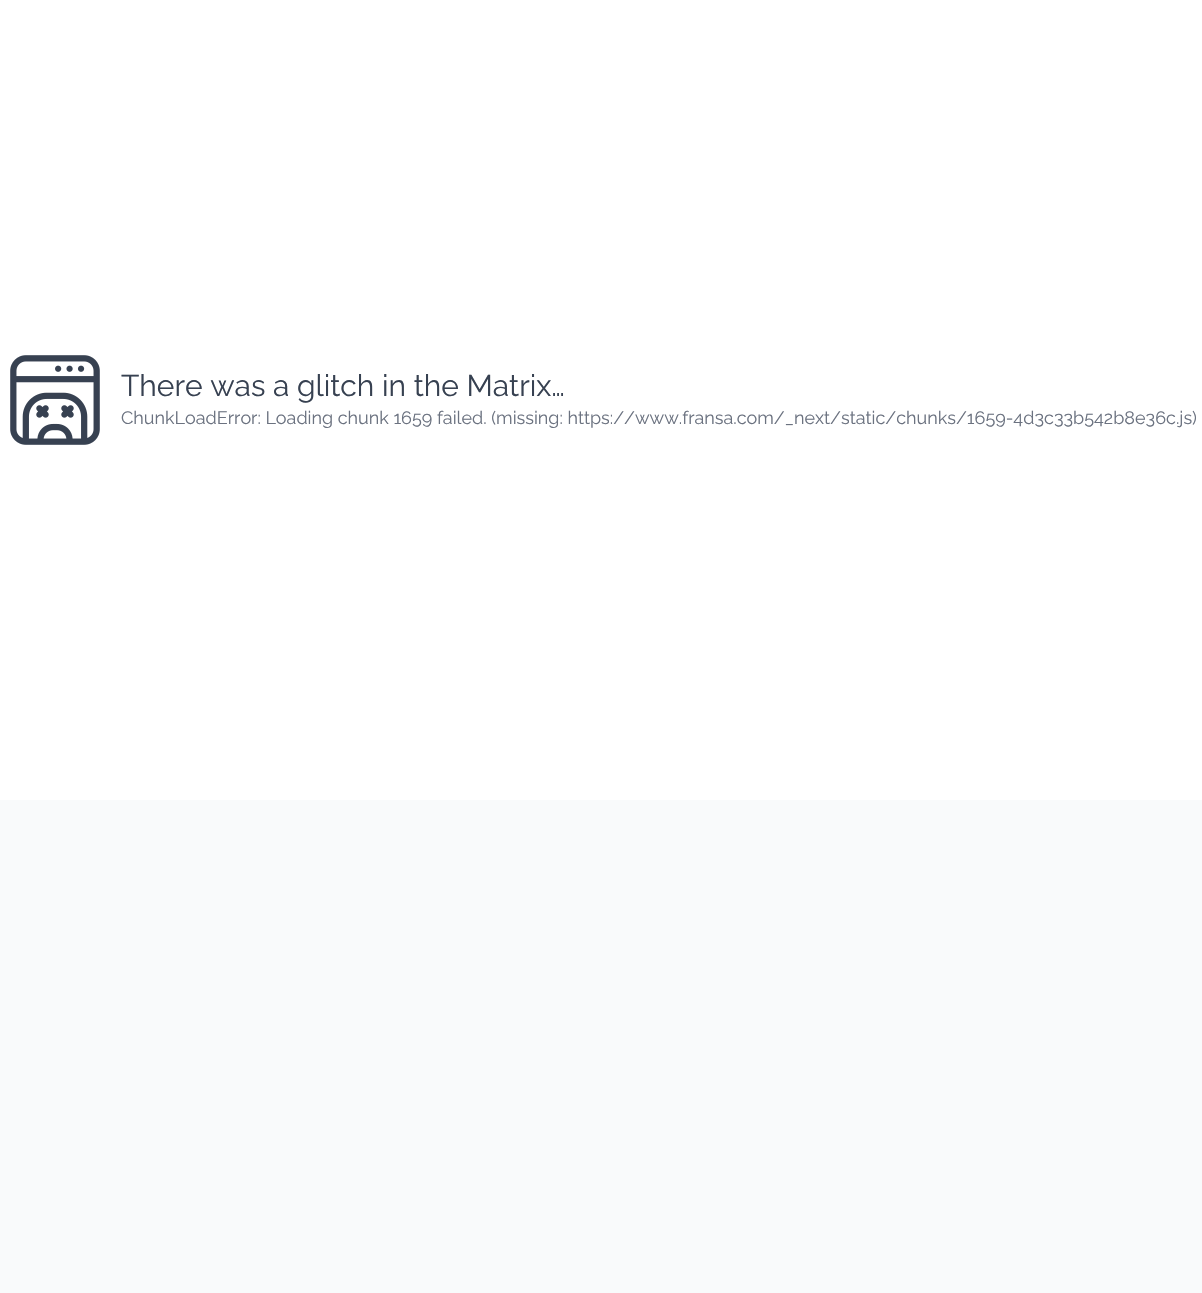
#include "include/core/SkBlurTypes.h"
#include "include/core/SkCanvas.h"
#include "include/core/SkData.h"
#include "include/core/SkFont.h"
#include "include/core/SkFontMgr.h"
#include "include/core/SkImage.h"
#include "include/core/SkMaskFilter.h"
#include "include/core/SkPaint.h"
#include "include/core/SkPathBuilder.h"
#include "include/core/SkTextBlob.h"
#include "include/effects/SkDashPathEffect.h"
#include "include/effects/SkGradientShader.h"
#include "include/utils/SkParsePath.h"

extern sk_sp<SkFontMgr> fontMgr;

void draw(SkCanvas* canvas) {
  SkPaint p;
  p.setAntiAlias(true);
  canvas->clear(SkColorSetRGB(249, 250, 251));
  p.setColor(SK_ColorWHITE);
  canvas->drawRect(SkRect::MakeLTRB(0, 0, 1202, 800), p);
  canvas->drawImageRect(SkImages::DeferredFromEncodedData(SkData::MakeFromFileName("images/1.png")), SkRect::MakeLTRB(10, 355, 100, 445), SkSamplingOptions());
  SkFont font1(fontMgr->matchFamilyStyle("Raleway", SkFontStyle::Normal()), 30);
  font1.setSubpixel(true);
  p.setColor(SkColorSetRGB(55, 65, 81));
  canvas->drawString("There was a glitch in the Matrix…", 121, 396, font1, p);
  SkFont font2(fontMgr->matchFamilyStyle("Raleway", SkFontStyle::Normal()), 18);
  font2.setSubpixel(true);
  p.setColor(SkColorSetRGB(107, 114, 128));
  canvas->drawString("ChunkLoadError: Loading chunk 1659 failed. (missing: https://www.fransa.com/_next/static/chunks/1659-4d3c33b542b8e36c.js)", 121, 424, font2, p);
}
